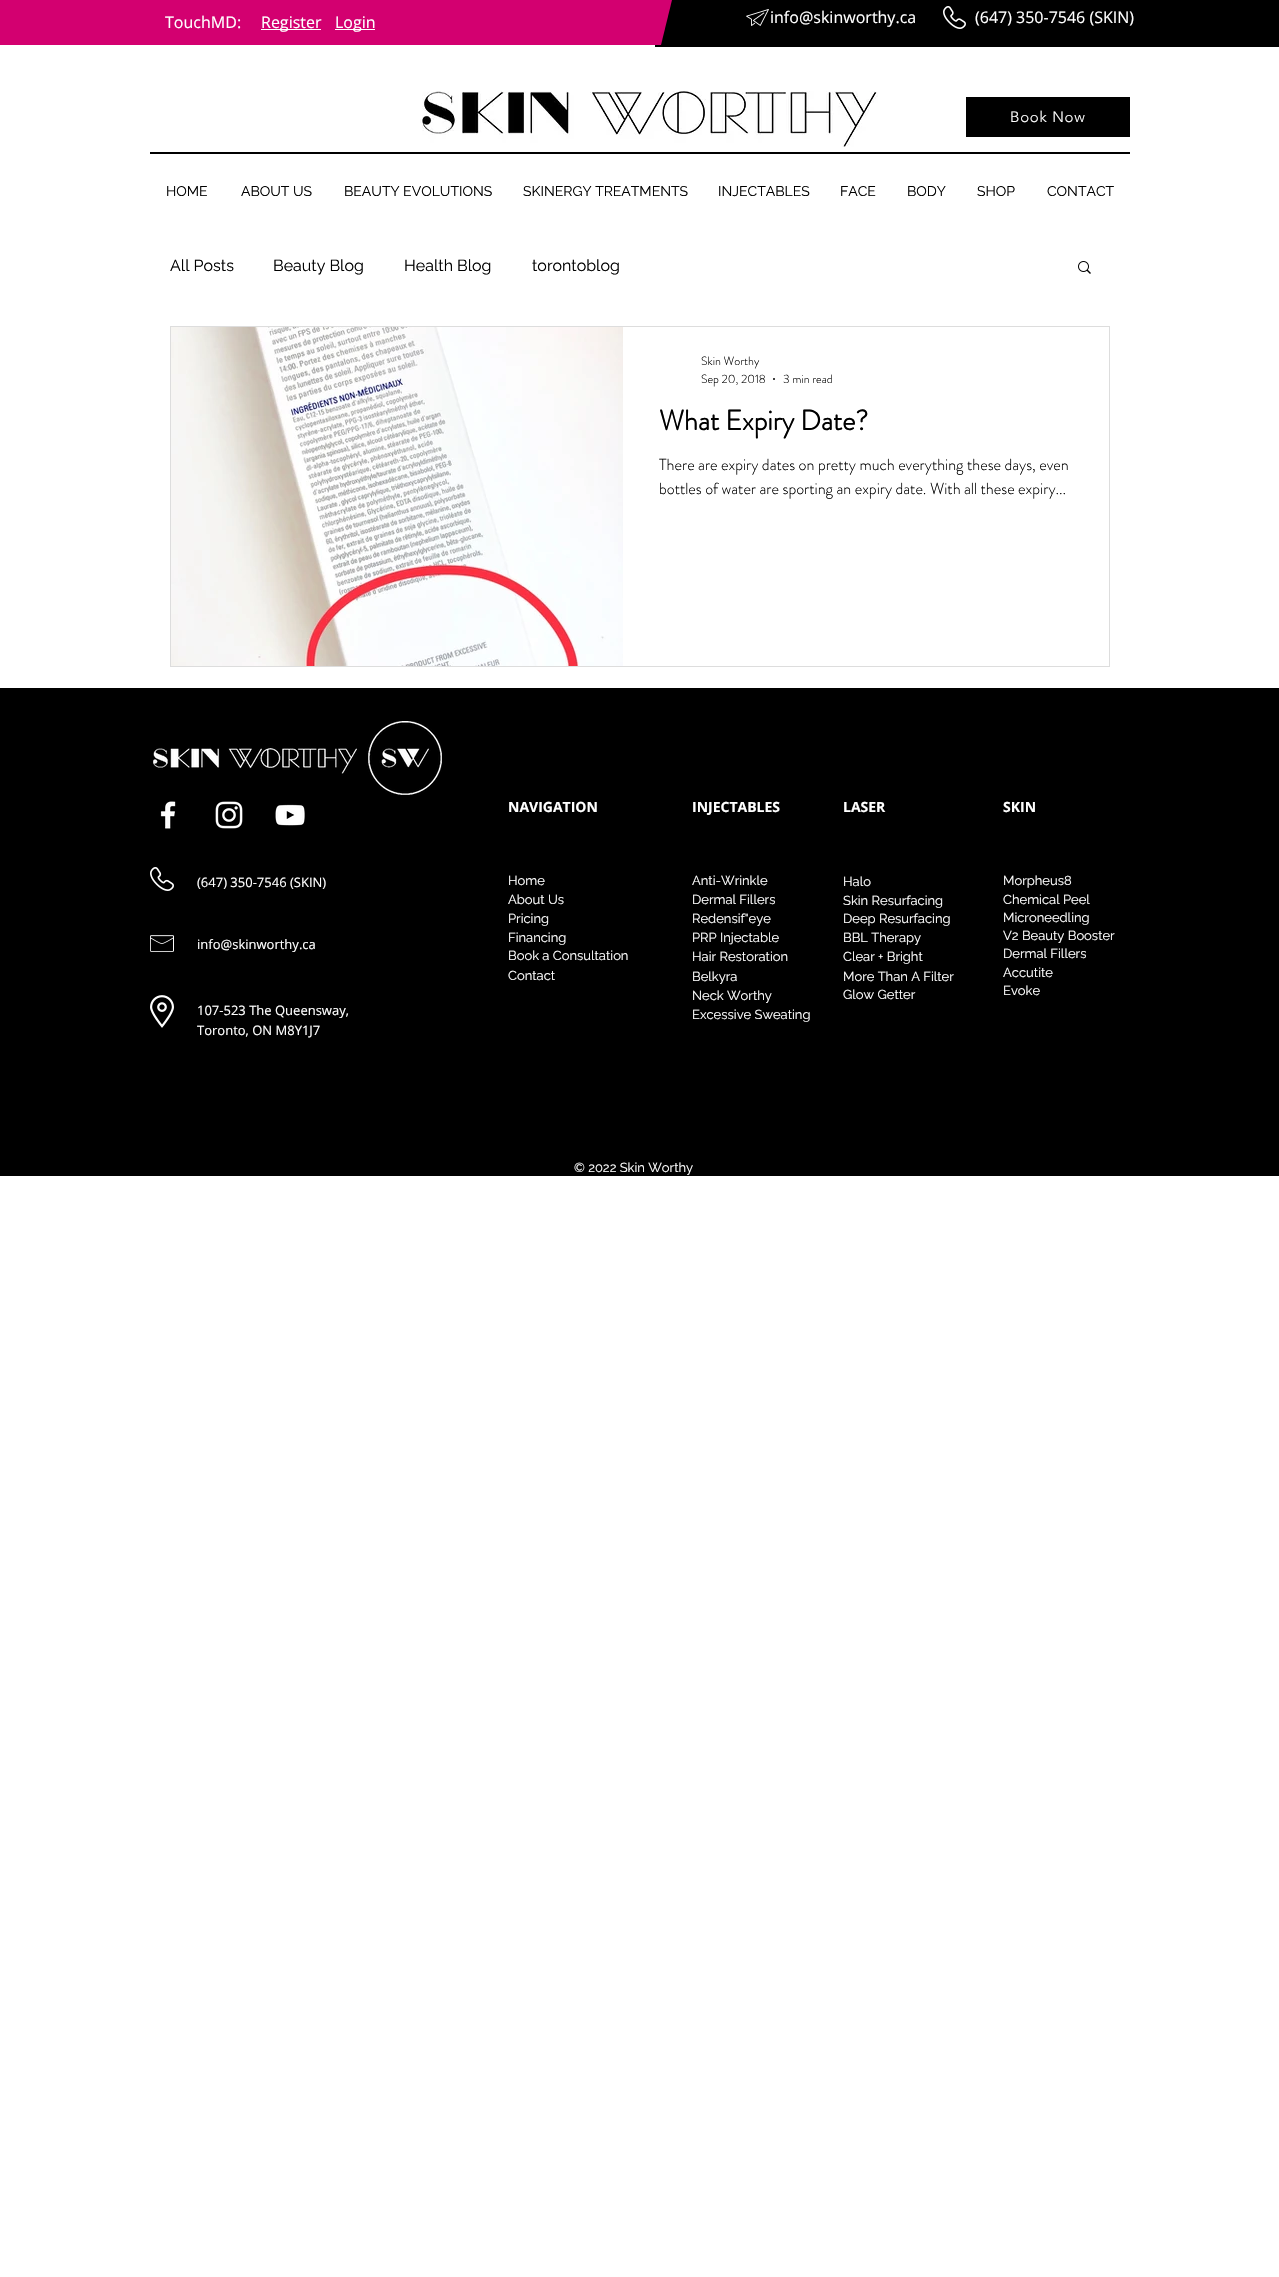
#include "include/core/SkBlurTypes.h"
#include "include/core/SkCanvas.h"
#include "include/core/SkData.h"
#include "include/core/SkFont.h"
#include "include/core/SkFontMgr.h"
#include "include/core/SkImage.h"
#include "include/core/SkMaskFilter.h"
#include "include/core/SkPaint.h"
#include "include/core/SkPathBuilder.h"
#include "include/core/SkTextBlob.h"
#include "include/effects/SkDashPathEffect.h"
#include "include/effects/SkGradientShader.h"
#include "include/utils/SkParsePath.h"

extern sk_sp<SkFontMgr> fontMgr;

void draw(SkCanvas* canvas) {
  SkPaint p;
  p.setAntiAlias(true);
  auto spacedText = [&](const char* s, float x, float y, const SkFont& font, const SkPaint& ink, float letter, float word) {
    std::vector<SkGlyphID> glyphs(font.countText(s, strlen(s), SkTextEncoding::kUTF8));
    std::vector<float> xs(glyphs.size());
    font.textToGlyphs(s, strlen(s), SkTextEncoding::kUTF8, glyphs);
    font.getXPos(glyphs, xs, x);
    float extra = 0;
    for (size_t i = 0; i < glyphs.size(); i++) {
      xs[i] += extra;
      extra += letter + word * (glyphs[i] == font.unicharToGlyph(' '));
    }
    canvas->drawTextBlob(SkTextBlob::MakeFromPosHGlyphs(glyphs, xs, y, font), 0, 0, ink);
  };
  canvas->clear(SK_ColorWHITE);
  p.setColor(SkColorSetRGB(211, 0, 112));
  canvas->drawRect(SkRect::MakeLTRB(0, 0, 648, 45), p);
  p.setColor(SK_ColorWHITE);
  canvas->drawRect(SkRect::MakeLTRB(261, 29, 321, 30), p);
  canvas->drawRect(SkRect::MakeLTRB(335, 29, 375, 30), p);
  p.setColor(SK_ColorBLACK);
  canvas->drawRect(SkRect::MakeLTRB(655, 0, 1279, 47), p);
  p.setColor(SkColorSetRGB(211, 0, 112));
  canvas->drawPath(SkPathBuilder().moveTo(661, 45).lineTo(637, 45).lineTo(648, 0).lineTo(672, 0).close().detach(), p);
  canvas->drawImageRect(SkImages::DeferredFromEncodedData(SkData::MakeFromFileName("images/1.png")), SkRect::MakeLTRB(746, 9, 769, 26), SkSamplingOptions());
  canvas->drawImageRect(SkImages::DeferredFromEncodedData(SkData::MakeFromFileName("images/2.png")), SkRect::MakeLTRB(943, 6, 966, 29), SkSamplingOptions());
  canvas->drawImageRect(SkImages::DeferredFromEncodedData(SkData::MakeFromFileName("images/3.png")), SkRect::MakeLTRB(420, 91, 878, 147), SkSamplingOptions());
  p.setColor(SK_ColorBLACK);
  canvas->drawRect(SkRect::MakeLTRB(966, 97, 1130, 137), p);
  canvas->drawRect(SkRect::MakeLTRB(150, 152, 1130, 154), p);
  canvas->drawImageRect(SkImages::DeferredFromEncodedData(SkData::MakeFromFileName("images/4.png")), SkRect::MakeLTRB(1078, 261, 1091, 274), SkSamplingOptions());
  p.setStyle(SkPaint::kStroke_Style);
  p.setStrokeWidth(1);
  p.setColor(SkColorSetRGB(221, 221, 221));
  canvas->drawRect(SkRect::MakeLTRB(170.5f, 326.5f, 1109.5f, 666.5f), p);
  canvas->drawImageRect(SkImages::DeferredFromEncodedData(SkData::MakeFromFileName("images/5.png")), SkRect::MakeLTRB(171, 327, 623, 666), SkSamplingOptions());
  p.setStyle(SkPaint::kFill_Style);
  p.setColor(SK_ColorBLACK);
  canvas->drawCircle(774, 379, 1, p);
  canvas->drawRect(SkRect::MakeLTRB(0, 688, 1279, 1176), p);
  canvas->drawImageRect(SkImages::DeferredFromEncodedData(SkData::MakeFromFileName("images/6.png")), SkRect::MakeLTRB(153, 721, 442, 795), SkSamplingOptions());
  canvas->drawImageRect(SkImages::DeferredFromEncodedData(SkData::MakeFromFileName("images/7.png")), SkRect::MakeLTRB(160, 801, 176, 829), SkSamplingOptions());
  canvas->drawImageRect(SkImages::DeferredFromEncodedData(SkData::MakeFromFileName("images/8.png")), SkRect::MakeLTRB(215, 801, 243, 829), SkSamplingOptions());
  canvas->drawImageRect(SkImages::DeferredFromEncodedData(SkData::MakeFromFileName("images/9.png")), SkRect::MakeLTRB(275, 804, 305, 826), SkSamplingOptions());
  canvas->drawImageRect(SkImages::DeferredFromEncodedData(SkData::MakeFromFileName("images/10.png")), SkRect::MakeLTRB(150, 867, 174, 891), SkSamplingOptions());
  canvas->drawImageRect(SkImages::DeferredFromEncodedData(SkData::MakeFromFileName("images/11.png")), SkRect::MakeLTRB(150, 935, 174, 952), SkSamplingOptions());
  canvas->drawImageRect(SkImages::DeferredFromEncodedData(SkData::MakeFromFileName("images/12.png")), SkRect::MakeLTRB(150, 995, 174, 1028), SkSamplingOptions());
  SkFont font1(fontMgr->matchFamilyStyle("Open Sans", SkFontStyle::Normal()), 16);
  font1.setSubpixel(true);
  p.setColor(SK_ColorWHITE);
  canvas->drawString("TouchMD:", 165, 28, font1, p);
  canvas->drawString("Register", 261, 28, font1, p);
  canvas->drawString("Login", 335, 28, font1, p);
  canvas->drawString("info@skinworthy.ca", 770, 23, font1, p);
  canvas->drawString("(647) 350-7546 (SKIN)", 975, 23, font1, p);
  SkFont font2(fontMgr->matchFamilyStyle("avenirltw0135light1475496", SkFontStyle(300, SkFontStyle::kNormal_Width, SkFontStyle::kUpright_Slant)), 15);
  font2.setSubpixel(true);
  spacedText("Book Now", 1010, 122, font2, p, 0.75f, 0);
  SkFont font3(fontMgr->matchFamilyStyle("Raleway", SkFontStyle::Normal()), 14);
  font3.setSubpixel(true);
  p.setColor(SK_ColorBLACK);
  canvas->drawString("HOME", 166, 196, font3, p);
  canvas->drawString("ABOUT US", 241, 196, font3, p);
  canvas->drawString("BEAUTY EVOLUTIONS", 344, 196, font3, p);
  canvas->drawString("SKINERGY TREATMENTS", 523, 196, font3, p);
  canvas->drawString("INJECTABLES", 718, 196, font3, p);
  canvas->drawString("FACE", 840, 196, font3, p);
  canvas->drawString("BODY", 907, 196, font3, p);
  canvas->drawString("SHOP", 977, 196, font3, p);
  canvas->drawString("CONTACT", 1047, 196, font3, p);
  SkFont font4(fontMgr->matchFamilyStyle("Raleway", SkFontStyle::Normal()), 16);
  font4.setSubpixel(true);
  canvas->drawString("All Posts", 170, 271, font4, p);
  canvas->drawString("Beauty Blog", 273, 271, font4, p);
  canvas->drawString("Health Blog", 404, 271, font4, p);
  canvas->drawString("torontoblog", 532, 271, font4, p);
  SkFont font5(fontMgr->matchFamilyStyle("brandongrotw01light", SkFontStyle(300, SkFontStyle::kNormal_Width, SkFontStyle::kUpright_Slant)), 12);
  font5.setSubpixel(true);
  canvas->drawString("Skin Worthy", 701, 365, font5, p);
  canvas->drawString("Sep 20, 2018", 701, 383, font5, p);
  canvas->drawString("3 min read", 783, 383, font5, p);
  SkFont font6(fontMgr->matchFamilyStyle("brandongrotw01light", SkFontStyle::Bold()), 28);
  font6.setSubpixel(true);
  canvas->drawString("What Expiry Date?", 659, 430, font6, p);
  SkFont font7(fontMgr->matchFamilyStyle("brandongrotw01light", SkFontStyle(300, SkFontStyle::kNormal_Width, SkFontStyle::kUpright_Slant)), 16);
  font7.setSubpixel(true);
  canvas->drawString("There are expiry dates on pretty much everything these days, even", 659, 470, font7, p);
  canvas->drawString("bottles of water are sporting an expiry date. With all these expiry...", 659, 494, font7, p);
  SkFont font8(fontMgr->matchFamilyStyle("Open Sans", SkFontStyle::Bold()), 14);
  font8.setSubpixel(true);
  p.setColor(SK_ColorWHITE);
  canvas->drawString("NAVIGATION", 508, 812, font8, p);
  canvas->drawString("INJECTABLES", 692, 812, font8, p);
  canvas->drawString("LASER", 843, 812, font8, p);
  canvas->drawString("SKIN", 1003, 812, font8, p);
  SkFont font9(fontMgr->matchFamilyStyle("Raleway", SkFontStyle::Normal()), 13);
  font9.setSubpixel(true);
  canvas->drawString("Home", 508, 885, font9, p);
  canvas->drawString("About Us", 508, 904, font9, p);
  canvas->drawString("Pricing", 508, 923, font9, p);
  canvas->drawString("Financing", 508, 942, font9, p);
  canvas->drawString("Book a Consultation", 508, 960, font9, p);
  canvas->drawString("Contact", 508, 980, font9, p);
  canvas->drawString("Anti-Wrinkle", 692, 885, font9, p);
  canvas->drawString("Dermal Fillers", 692, 904, font9, p);
  canvas->drawString("Redensif\"eye", 692, 923, font9, p);
  canvas->drawString("PRP Injectable", 692, 942, font9, p);
  canvas->drawString("Hair Restoration", 692, 961, font9, p);
  canvas->drawString("Belkyra", 692, 981, font9, p);
  canvas->drawString("Neck Worthy", 692, 1000, font9, p);
  canvas->drawString("Excessive Sweating", 692, 1019, font9, p);
  canvas->drawString("Halo", 843, 886, font9, p);
  canvas->drawString("Skin Resurfacing", 843, 905, font9, p);
  canvas->drawString("Deep Resurfacing", 843, 923, font9, p);
  canvas->drawString("BBL Therapy", 843, 942, font9, p);
  canvas->drawString("Clear + Bright", 843, 961, font9, p);
  canvas->drawString("More Than A Filter", 843, 981, font9, p);
  canvas->drawString("Glow Getter", 843, 999, font9, p);
  canvas->drawString("Morpheus8", 1003, 885, font9, p);
  canvas->drawString("Chemical Peel", 1003, 904, font9, p);
  canvas->drawString("Microneedling", 1003, 922, font9, p);
  canvas->drawString("V2 Beauty Booster", 1003, 940, font9, p);
  canvas->drawString("Dermal Fillers", 1003, 958, font9, p);
  canvas->drawString("Accutite", 1003, 977, font9, p);
  canvas->drawString("Evoke", 1003, 995, font9, p);
  SkFont font10(fontMgr->matchFamilyStyle("Open Sans", SkFontStyle::Normal()), 13);
  font10.setSubpixel(true);
  canvas->drawString("(647) 350-7546 (SKIN)", 197, 887, font10, p);
  canvas->drawString("info@skinworthy.ca", 197, 949, font10, p);
  canvas->drawString("107-523 The Queensway,", 197, 1015, font10, p);
  canvas->drawString("Toronto, ON M8Y1J7", 197, 1035, font10, p);
  canvas->drawString("© 2022 Skin Worthy", 574, 1172, font9, p);
}
